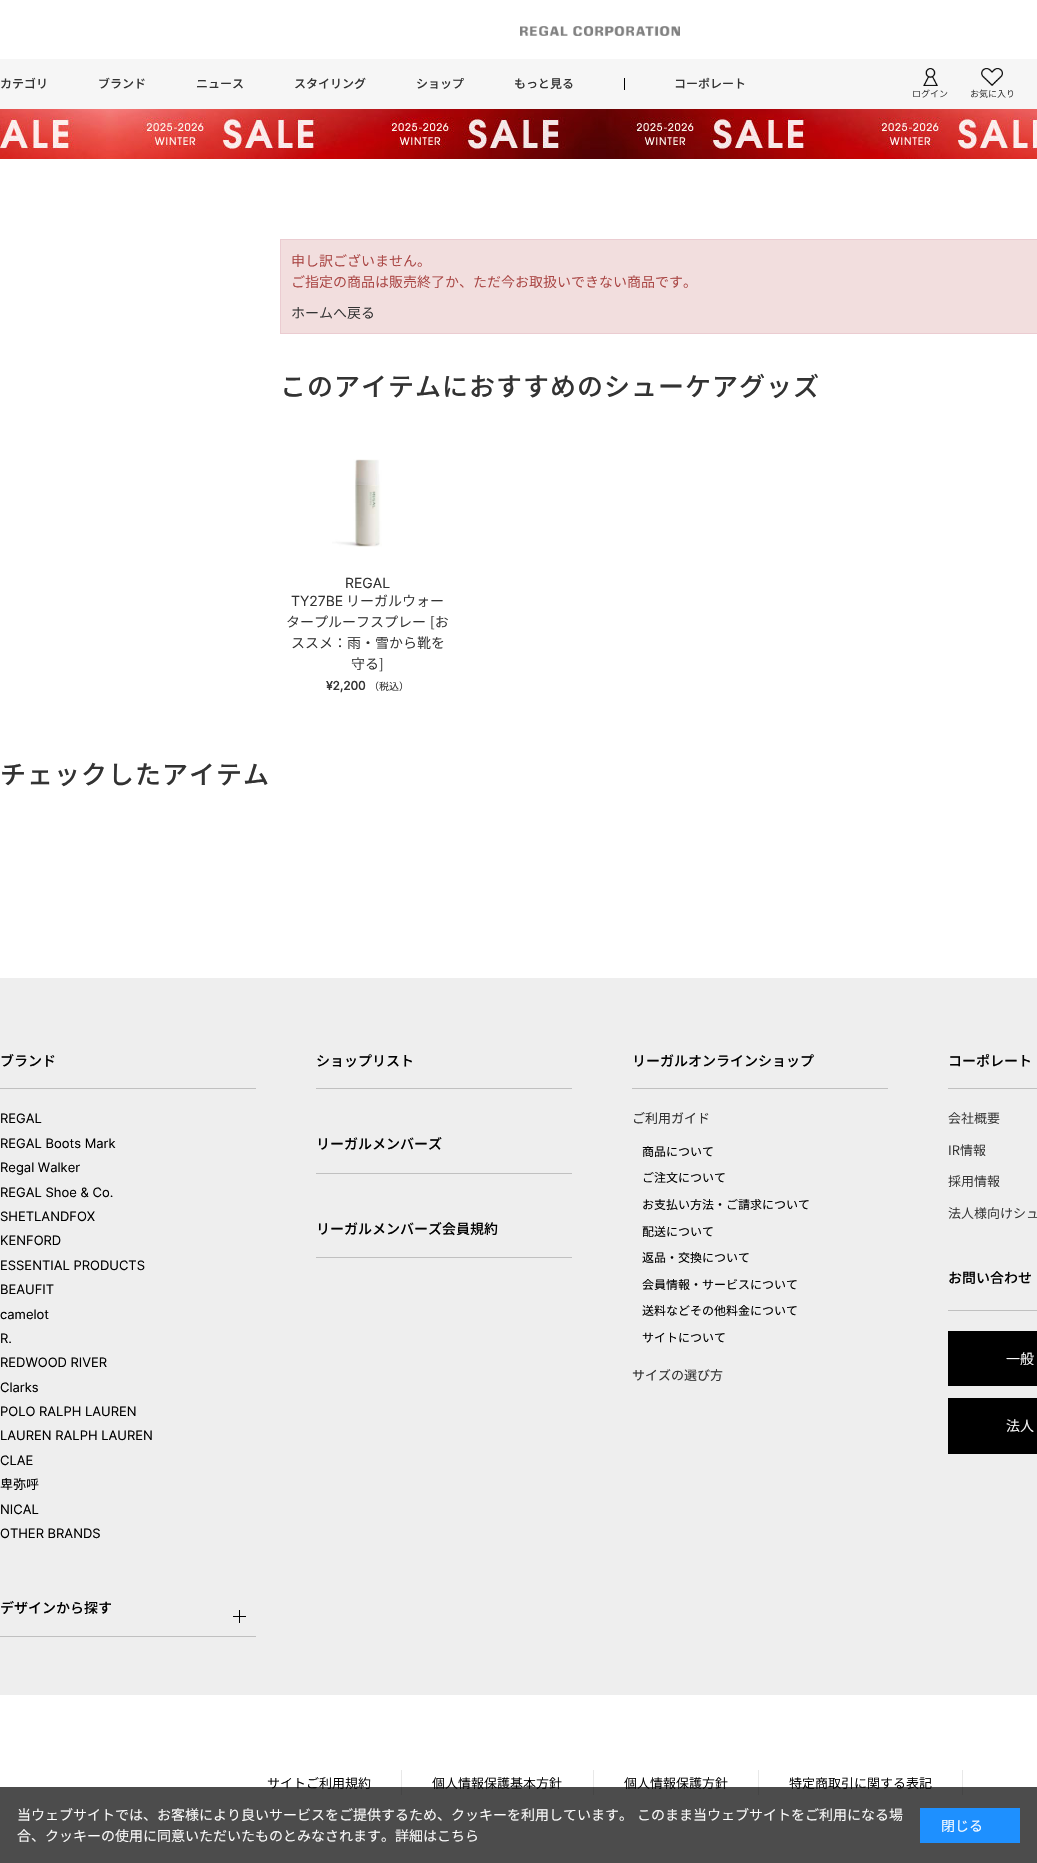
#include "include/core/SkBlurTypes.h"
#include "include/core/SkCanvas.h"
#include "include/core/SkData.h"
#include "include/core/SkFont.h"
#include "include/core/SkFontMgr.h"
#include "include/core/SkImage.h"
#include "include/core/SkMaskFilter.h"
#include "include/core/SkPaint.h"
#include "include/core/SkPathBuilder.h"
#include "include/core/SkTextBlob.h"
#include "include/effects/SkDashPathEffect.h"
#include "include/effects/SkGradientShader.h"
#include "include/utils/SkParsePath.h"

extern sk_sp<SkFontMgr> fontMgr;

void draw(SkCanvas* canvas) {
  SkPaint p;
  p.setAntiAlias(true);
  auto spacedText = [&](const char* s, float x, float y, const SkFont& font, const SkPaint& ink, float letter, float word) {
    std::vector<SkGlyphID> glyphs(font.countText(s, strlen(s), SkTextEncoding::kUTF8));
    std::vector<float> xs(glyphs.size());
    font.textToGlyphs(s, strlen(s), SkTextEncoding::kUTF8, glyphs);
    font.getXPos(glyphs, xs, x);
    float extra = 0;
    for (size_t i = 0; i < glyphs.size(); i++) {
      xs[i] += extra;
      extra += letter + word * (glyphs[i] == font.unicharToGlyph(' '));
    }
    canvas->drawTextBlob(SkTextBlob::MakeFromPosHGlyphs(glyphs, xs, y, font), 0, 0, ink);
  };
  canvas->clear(SK_ColorWHITE);
  canvas->drawImageRect(SkImages::DeferredFromEncodedData(SkData::MakeFromFileName("images/1.png")), SkRect::MakeLTRB(520, 26, 680, 36), SkSamplingOptions());
  p.setColor(SkColorSetRGB(246, 246, 246));
  canvas->drawRect(SkRect::MakeLTRB(0, 59, 1037, 109), p);
  p.setColor(SK_ColorBLACK);
  canvas->drawRect(SkRect::MakeLTRB(624, 78, 625, 90), p);
  canvas->drawImageRect(SkImages::DeferredFromEncodedData(SkData::MakeFromFileName("images/2.png")), SkRect::MakeLTRB(923, 68, 938, 86), SkSamplingOptions());
  canvas->drawImageRect(SkImages::DeferredFromEncodedData(SkData::MakeFromFileName("images/3.png")), SkRect::MakeLTRB(981, 68, 1003, 86), SkSamplingOptions());
  canvas->drawImageRect(SkImages::DeferredFromEncodedData(SkData::MakeFromFileName("images/4.png")), SkRect::MakeLTRB(0, 109, 1037, 159), SkSamplingOptions());
  p.setColor(SkColorSetRGB(242, 222, 222));
  canvas->drawRect(SkRect::MakeLTRB(280.5f, 239.5f, 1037.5f, 333.5f), p);
  p.setStyle(SkPaint::kStroke_Style);
  p.setStrokeWidth(1);
  p.setColor(SkColorSetRGB(235, 204, 209));
  canvas->drawRect(SkRect::MakeLTRB(280.5f, 239.5f, 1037.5f, 333.5f), p);
  canvas->drawImageRect(SkImages::DeferredFromEncodedData(SkData::MakeFromFileName("images/5.png")), SkRect::MakeLTRB(332, 459, 382, 547), SkSamplingOptions());
  p.setStyle(SkPaint::kFill_Style);
  p.setColor(SkColorSetRGB(238, 238, 238));
  canvas->drawRect(SkRect::MakeLTRB(0, 978, 1037, 1695), p);
  p.setColor(SkColorSetRGB(192, 192, 192));
  canvas->drawRect(SkRect::MakeLTRB(0, 1088, 256, 1089), p);
  canvas->drawRect(SkRect::MakeLTRB(0, 1636, 256, 1637), p);
  p.setColor(SK_ColorBLACK);
  canvas->drawRect(SkRect::MakeLTRB(239, 1610, 240, 1623), p);
  canvas->drawRect(SkRect::MakeLTRB(233, 1616, 246, 1617), p);
  p.setColor(SkColorSetRGB(192, 192, 192));
  canvas->drawRect(SkRect::MakeLTRB(316, 1088, 572, 1089), p);
  canvas->drawRect(SkRect::MakeLTRB(316, 1173, 572, 1174), p);
  canvas->drawRect(SkRect::MakeLTRB(316, 1257, 572, 1258), p);
  canvas->drawRect(SkRect::MakeLTRB(632, 1088, 888, 1089), p);
  canvas->drawRect(SkRect::MakeLTRB(948, 1088, 1037, 1089), p);
  canvas->drawRect(SkRect::MakeLTRB(948, 1310, 1037, 1311), p);
  p.setColor(SK_ColorBLACK);
  canvas->drawRect(SkRect::MakeLTRB(948, 1331, 1037, 1386), p);
  canvas->drawRect(SkRect::MakeLTRB(948, 1398, 1037, 1454), p);
  p.setColor(SkColorSetRGB(232, 232, 232));
  canvas->drawRect(SkRect::MakeLTRB(401, 1770, 402, 1795), p);
  canvas->drawRect(SkRect::MakeLTRB(593, 1770, 594, 1795), p);
  canvas->drawRect(SkRect::MakeLTRB(758, 1770, 759, 1795), p);
  canvas->drawRect(SkRect::MakeLTRB(962, 1770, 963, 1795), p);
  SkFont font1(fontMgr->matchFamilyStyle("Noto Sans JP", SkFontStyle(500, SkFontStyle::kNormal_Width, SkFontStyle::kUpright_Slant)), 12);
  font1.setSubpixel(true);
  p.setColor(SkColorSetRGB(51, 51, 51));
  canvas->drawString("カテゴリ", 0, 88, font1, p);
  canvas->drawString("ブランド", 98, 88, font1, p);
  canvas->drawString("ニュース", 196, 88, font1, p);
  canvas->drawString("スタイリング", 294, 88, font1, p);
  canvas->drawString("ショップ", 416, 88, font1, p);
  canvas->drawString("もっと見る", 514, 88, font1, p);
  canvas->drawString("コーポレート", 674, 88, font1, p);
  SkFont font2(fontMgr->matchFamilyStyle("Noto Sans JP", SkFontStyle(300, SkFontStyle::kNormal_Width, SkFontStyle::kUpright_Slant)), 9);
  font2.setSubpixel(true);
  canvas->drawString("ログイン", 912, 97, font2, p);
  canvas->drawString("お気に入り", 970, 97, font2, p);
  SkFont font3(fontMgr->matchFamilyStyle("Noto Sans JP", SkFontStyle(300, SkFontStyle::kNormal_Width, SkFontStyle::kUpright_Slant)), 14);
  font3.setSubpixel(true);
  p.setColor(SkColorSetRGB(169, 68, 66));
  canvas->drawString("申し訳ございません。", 291, 266, font3, p);
  canvas->drawString("ご指定の商品は販売終了か、ただ今お取扱いできない商品です。", 291, 287, font3, p);
  p.setColor(SkColorSetRGB(51, 51, 51));
  canvas->drawString("ホームへ戻る", 291, 318, font3, p);
  SkFont font4(fontMgr->matchFamilyStyle("Noto Sans JP", SkFontStyle(500, SkFontStyle::kNormal_Width, SkFontStyle::kUpright_Slant)), 26);
  font4.setSubpixel(true);
  spacedText("このアイテムにおすすめのシューケアグッズ", 280, 396, font4, p, 1, 0);
  SkFont font5(fontMgr->matchFamilyStyle("Inter", SkFontStyle::Normal()), 14);
  font5.setSubpixel(true);
  canvas->drawString("REGAL", 345, 588, font5, p);
  canvas->drawString("TY27BE", 291, 606, font5, p);
  canvas->drawString("リーガルウォー", 346, 606, font3, p);
  spacedText("タープルーフスプレー [お", 286, 627, font3, p, 0, 1);
  canvas->drawString("ススメ：雨・雪から靴を", 291, 648, font3, p);
  canvas->drawString("守る]", 351, 669, font3, p);
  SkFont font6(fontMgr->matchFamilyStyle("Inter", SkFontStyle::Bold()), 12);
  font6.setSubpixel(true);
  canvas->drawString("¥2,200", 326, 690, font6, p);
  SkFont font7(fontMgr->matchFamilyStyle("Noto Sans JP", SkFontStyle::Normal()), 10);
  font7.setSubpixel(true);
  canvas->drawString("（税込）", 369, 690, font7, p);
  spacedText("チェックしたアイテム", 0, 784, font4, p, 1, 0);
  SkFont font8(fontMgr->matchFamilyStyle("Noto Sans JP", SkFontStyle(500, SkFontStyle::kNormal_Width, SkFontStyle::kUpright_Slant)), 14);
  font8.setSubpixel(true);
  p.setColor(SK_ColorBLACK);
  canvas->drawString("ブランド", 0, 1066, font8, p);
  SkFont font9(fontMgr->matchFamilyStyle("Inter", SkFontStyle::Normal()), 13);
  font9.setSubpixel(true);
  canvas->drawString("REGAL", 0, 1123, font9, p);
  canvas->drawString("REGAL Boots Mark", 0, 1148, font9, p);
  canvas->drawString("Regal Walker", 0, 1172, font9, p);
  canvas->drawString("REGAL Shoe & Co.", 0, 1197, font9, p);
  canvas->drawString("SHETLANDFOX", 0, 1221, font9, p);
  canvas->drawString("KENFORD", 0, 1245, font9, p);
  canvas->drawString("ESSENTIAL PRODUCTS", 0, 1270, font9, p);
  canvas->drawString("BEAUFIT", 0, 1294, font9, p);
  canvas->drawString("camelot", 0, 1319, font9, p);
  canvas->drawString("R.", 0, 1343, font9, p);
  canvas->drawString("REDWOOD RIVER", 0, 1367, font9, p);
  canvas->drawString("Clarks", 0, 1392, font9, p);
  canvas->drawString("POLO RALPH LAUREN", 0, 1416, font9, p);
  canvas->drawString("LAUREN RALPH LAUREN", 0, 1440, font9, p);
  canvas->drawString("CLAE", 0, 1465, font9, p);
  SkFont font10(fontMgr->matchFamilyStyle("Noto Sans JP", SkFontStyle::Normal()), 13);
  font10.setSubpixel(true);
  canvas->drawString("卑弥呼", 0, 1489, font10, p);
  canvas->drawString("NICAL", 0, 1514, font9, p);
  canvas->drawString("OTHER BRANDS", 0, 1538, font9, p);
  canvas->drawString("デザインから探す", 0, 1613, font8, p);
  canvas->drawString("ショップリスト", 316, 1066, font8, p);
  canvas->drawString("リーガルメンバーズ", 316, 1149, font8, p);
  canvas->drawString("リーガルメンバーズ会員規約", 316, 1234, font8, p);
  canvas->drawString("リーガルオンラインショップ", 632, 1066, font8, p);
  p.setColor(SkColorSetRGB(51, 51, 51));
  canvas->drawString("ご利用ガイド", 632, 1123, font10, p);
  SkFont font11(fontMgr->matchFamilyStyle("Noto Sans JP", SkFontStyle::Normal()), 12);
  font11.setSubpixel(true);
  p.setColor(SK_ColorBLACK);
  canvas->drawString("商品について", 642, 1156, font11, p);
  canvas->drawString("ご注文について", 642, 1182, font11, p);
  canvas->drawString("お支払い方法・ご請求について", 642, 1209, font11, p);
  canvas->drawString("配送について", 642, 1236, font11, p);
  canvas->drawString("返品・交換について", 642, 1262, font11, p);
  canvas->drawString("会員情報・サービスについて", 642, 1289, font11, p);
  canvas->drawString("送料などその他料金について", 642, 1315, font11, p);
  canvas->drawString("サイトについて", 642, 1342, font11, p);
  p.setColor(SkColorSetRGB(51, 51, 51));
  canvas->drawString("サイズの選び方", 632, 1380, font10, p);
  p.setColor(SK_ColorBLACK);
  canvas->drawString("コーポレート", 948, 1066, font8, p);
  SkFont font12(fontMgr->matchFamilyStyle("Noto Sans JP", SkFontStyle(300, SkFontStyle::kNormal_Width, SkFontStyle::kUpright_Slant)), 13);
  font12.setSubpixel(true);
  p.setColor(SkColorSetRGB(51, 51, 51));
  canvas->drawString("会社概要", 948, 1123, font12, p);
  canvas->drawString("IR情報", 948, 1155, font12, p);
  canvas->drawString("採用情報", 948, 1186, font12, p);
  canvas->drawString("法人様向けシュ", 948, 1218, font12, p);
  p.setColor(SK_ColorBLACK);
  canvas->drawString("お問い合わせ", 948, 1283, font8, p);
  p.setColor(SK_ColorWHITE);
  canvas->drawString("一般", 1006, 1364, font3, p);
  canvas->drawString("法人", 1006, 1431, font3, p);
  p.setColor(SK_ColorBLACK);
  canvas->drawString("サイトご利用規約", 267, 1788, font12, p);
  canvas->drawString("個人情報保護基本方針", 432, 1788, font12, p);
  canvas->drawString("個人情報保護方針", 624, 1788, font12, p);
  canvas->drawString("特定商取引に関する表記", 789, 1788, font12, p);
  p.setColor(SkColorSetARGB(179, 0, 0, 0));
  canvas->drawRect(SkRect::MakeLTRB(0, 1787, 1037, 1863), p);
  p.setColor(SK_ColorWHITE);
  spacedText("当ウェブサイトでは、お客様により良いサービスをご提供するため、クッキーを利用しています。 このまま当ウェブサイトをご利用になる場", 17, 1820, font3, p, 0, 1);
  canvas->drawString("合、クッキーの使用に同意いただいたものとみなされます。詳細はこちら", 17, 1841, font3, p);
  p.setColor(SkColorSetRGB(30, 144, 255));
  canvas->drawRect(SkRect::MakeLTRB(920, 1808, 1020, 1843), p);
  p.setColor(SK_ColorWHITE);
  canvas->drawString("閉じる", 941, 1831, font3, p);
}
